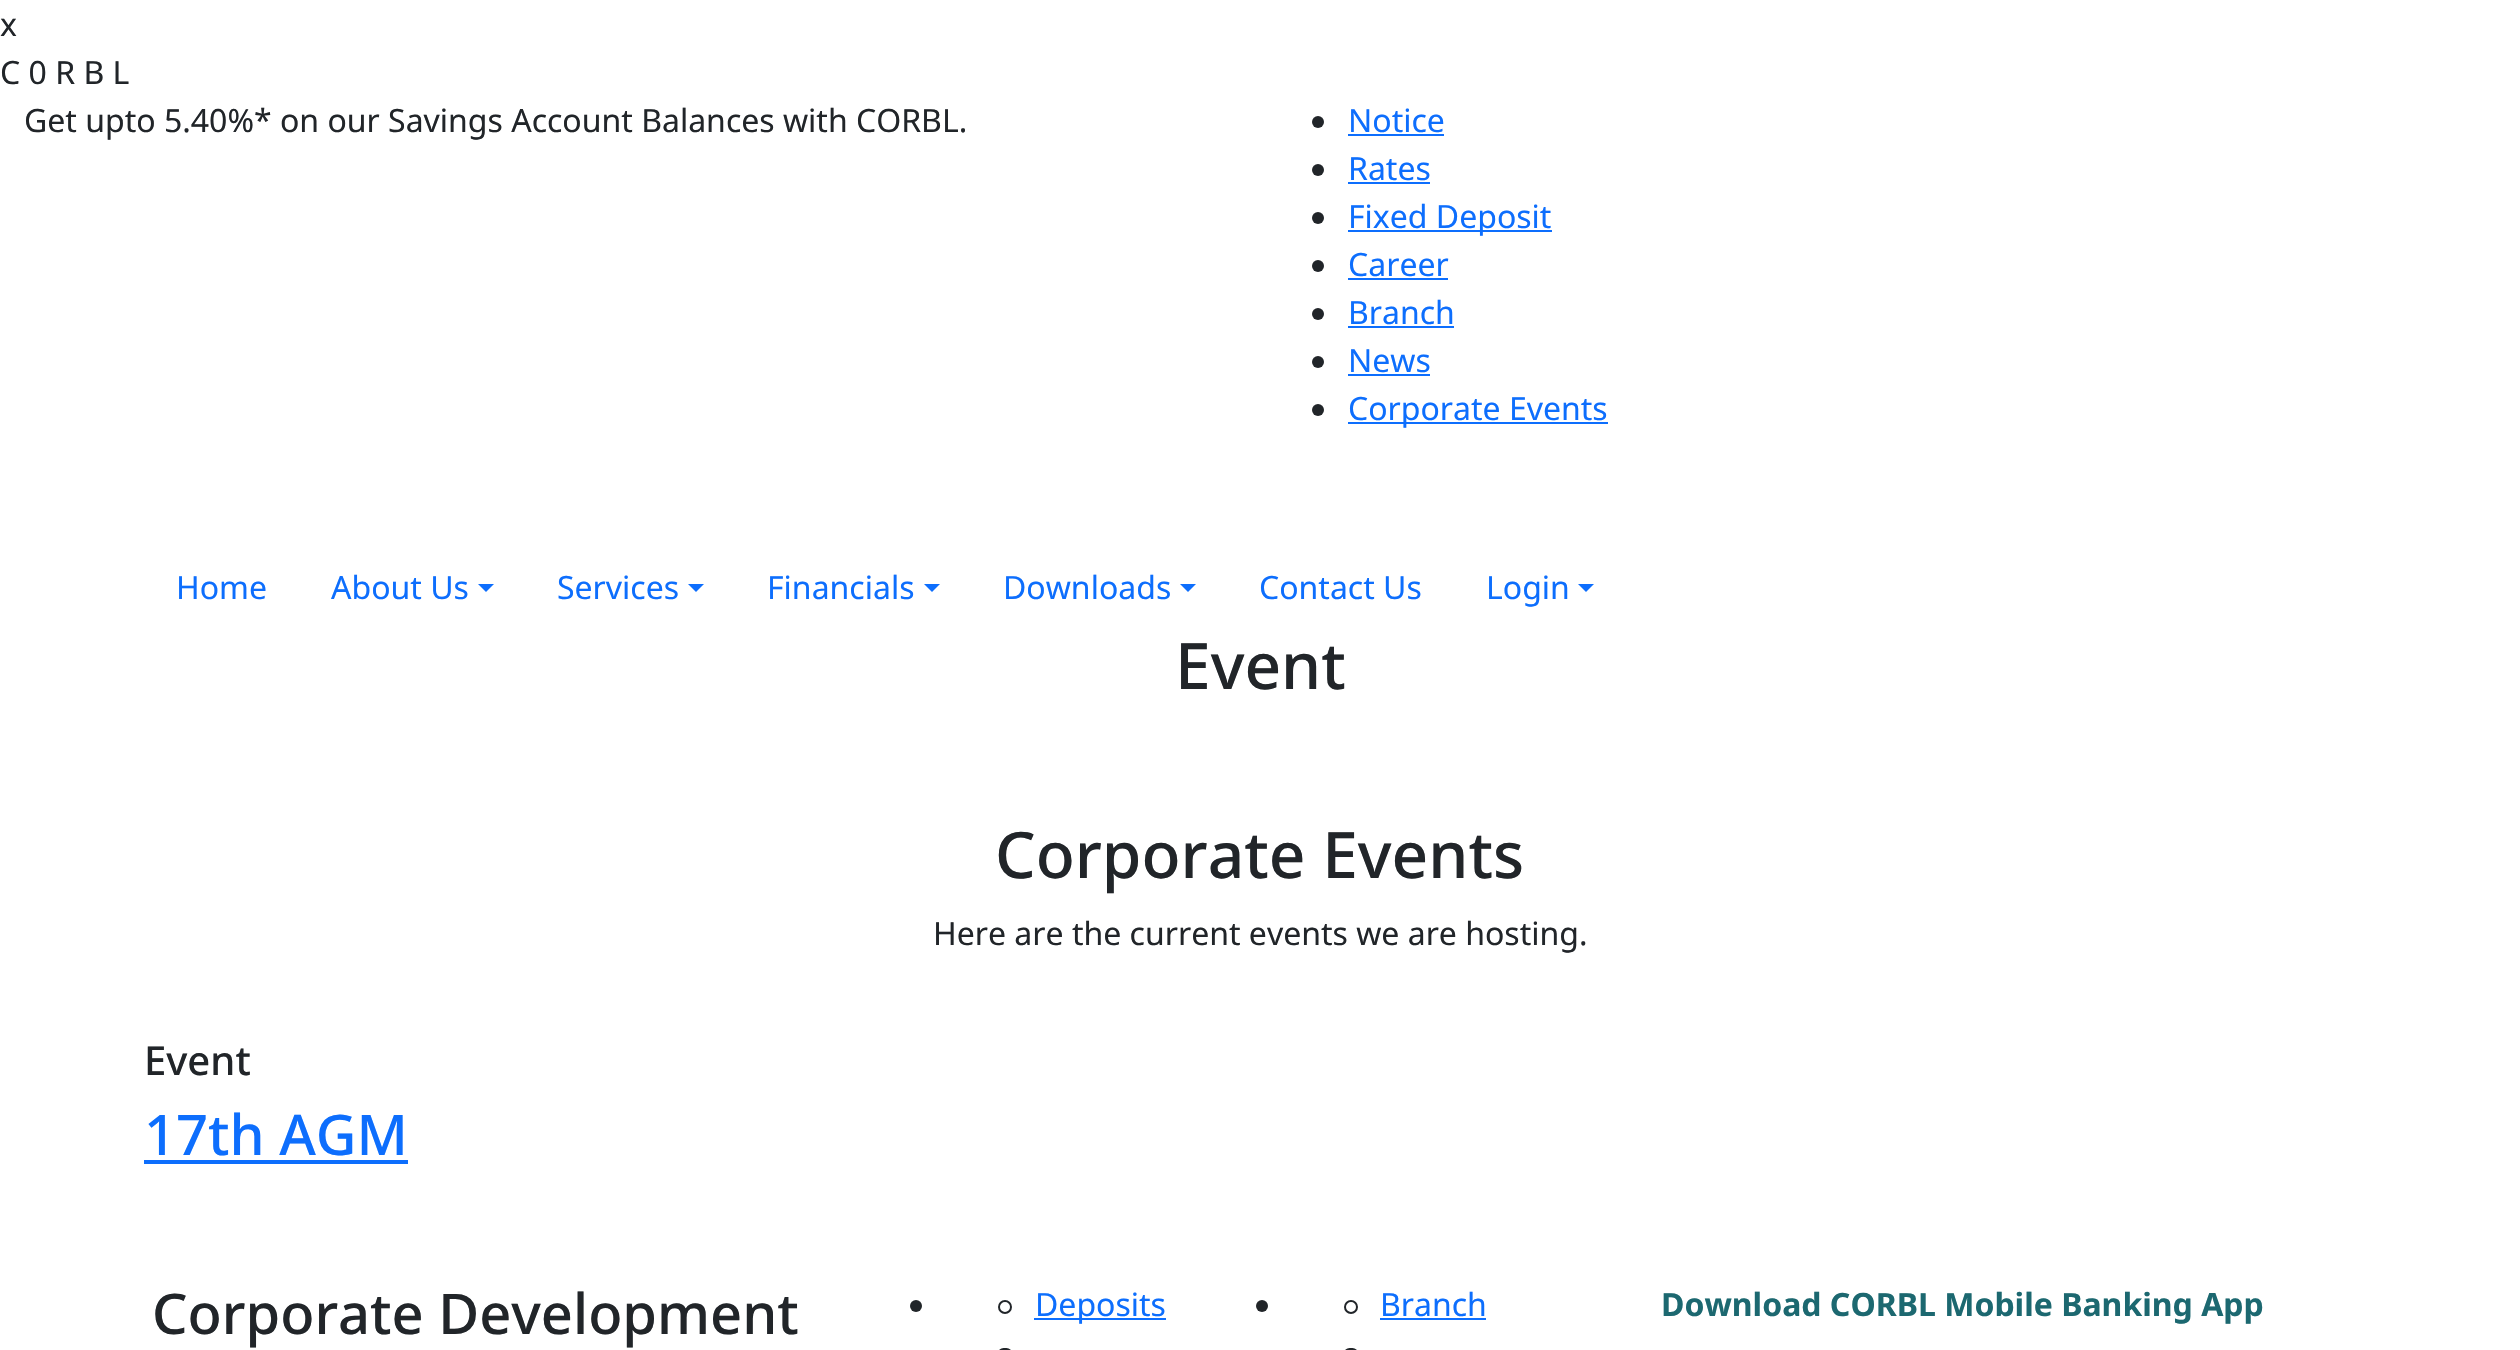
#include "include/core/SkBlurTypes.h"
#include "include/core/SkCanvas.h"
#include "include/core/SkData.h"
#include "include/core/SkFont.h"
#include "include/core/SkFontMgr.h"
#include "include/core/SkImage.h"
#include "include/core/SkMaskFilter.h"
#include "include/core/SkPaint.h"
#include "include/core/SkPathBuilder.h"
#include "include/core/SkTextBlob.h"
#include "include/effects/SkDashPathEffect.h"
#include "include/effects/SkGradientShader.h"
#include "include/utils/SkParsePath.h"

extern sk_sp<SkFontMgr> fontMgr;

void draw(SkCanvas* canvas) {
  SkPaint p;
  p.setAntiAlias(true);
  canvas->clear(SK_ColorWHITE);
  p.setColor(SkColorSetRGB(33, 37, 41));
  canvas->drawCircle(1318, 122, 6, p);
  p.setColor(SkColorSetRGB(13, 110, 253));
  canvas->drawRect(SkRect::MakeLTRB(1348, 134, 1444, 136), p);
  p.setColor(SkColorSetRGB(33, 37, 41));
  canvas->drawCircle(1318, 170, 6, p);
  p.setColor(SkColorSetRGB(13, 110, 253));
  canvas->drawRect(SkRect::MakeLTRB(1348, 182, 1430, 184), p);
  p.setColor(SkColorSetRGB(33, 37, 41));
  canvas->drawCircle(1318, 218, 6, p);
  p.setColor(SkColorSetRGB(13, 110, 253));
  canvas->drawRect(SkRect::MakeLTRB(1348, 230, 1552, 232), p);
  p.setColor(SkColorSetRGB(33, 37, 41));
  canvas->drawCircle(1318, 266, 6, p);
  p.setColor(SkColorSetRGB(13, 110, 253));
  canvas->drawRect(SkRect::MakeLTRB(1348, 278, 1448, 280), p);
  p.setColor(SkColorSetRGB(33, 37, 41));
  canvas->drawCircle(1318, 314, 6, p);
  p.setColor(SkColorSetRGB(13, 110, 253));
  canvas->drawRect(SkRect::MakeLTRB(1348, 326, 1454, 328), p);
  p.setColor(SkColorSetRGB(33, 37, 41));
  canvas->drawCircle(1318, 362, 6, p);
  p.setColor(SkColorSetRGB(13, 110, 253));
  canvas->drawRect(SkRect::MakeLTRB(1348, 374, 1430, 376), p);
  p.setColor(SkColorSetRGB(33, 37, 41));
  canvas->drawCircle(1318, 410, 6, p);
  p.setColor(SkColorSetRGB(13, 110, 253));
  canvas->drawRect(SkRect::MakeLTRB(1348, 422, 1608, 424), p);
  canvas->drawPath(SkPathBuilder().moveTo(478, 584).lineTo(494, 584).lineTo(486, 592).close().detach(), p);
  canvas->drawPath(SkPathBuilder().moveTo(688, 584).lineTo(704, 584).lineTo(696, 592).close().detach(), p);
  canvas->drawPath(SkPathBuilder().moveTo(924, 584).lineTo(940, 584).lineTo(932, 592).close().detach(), p);
  canvas->drawPath(SkPathBuilder().moveTo(1180, 584).lineTo(1196, 584).lineTo(1188, 592).close().detach(), p);
  canvas->drawPath(SkPathBuilder().moveTo(1578, 584).lineTo(1594, 584).lineTo(1586, 592).close().detach(), p);
  canvas->drawRect(SkRect::MakeLTRB(144, 1160, 408, 1164), p);
  p.setColor(SkColorSetRGB(33, 37, 41));
  canvas->drawCircle(916, 1306, 6, p);
  p.setStyle(SkPaint::kStroke_Style);
  p.setStrokeWidth(2);
  canvas->drawCircle(1005, 1307, 6, p);
  p.setStyle(SkPaint::kFill_Style);
  p.setColor(SkColorSetRGB(13, 110, 253));
  canvas->drawRect(SkRect::MakeLTRB(1034, 1318, 1166, 1320), p);
  p.setStyle(SkPaint::kStroke_Style);
  p.setColor(SkColorSetRGB(33, 37, 41));
  canvas->drawRoundRect(SkRect::MakeLTRB(999, 1349, 1011, 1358), 6, 6, p);
  p.setStyle(SkPaint::kFill_Style);
  canvas->drawCircle(1262, 1306, 6, p);
  p.setStyle(SkPaint::kStroke_Style);
  canvas->drawCircle(1351, 1307, 6, p);
  p.setStyle(SkPaint::kFill_Style);
  p.setColor(SkColorSetRGB(13, 110, 253));
  canvas->drawRect(SkRect::MakeLTRB(1380, 1318, 1486, 1320), p);
  p.setStyle(SkPaint::kStroke_Style);
  p.setColor(SkColorSetRGB(33, 37, 41));
  canvas->drawRoundRect(SkRect::MakeLTRB(1345, 1349, 1357, 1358), 6, 6, p);
  SkFont font1(fontMgr->matchFamilyStyle("Noto Sans", SkFontStyle::Normal()), 32);
  font1.setSubpixel(true);
  p.setStyle(SkPaint::kFill_Style);
  canvas->drawString("x", 0, 36, font1, p);
  canvas->drawString("C 0 R B L", 0, 84, font1, p);
  canvas->drawString("Get upto 5.40%* on our Savings Account Balances with CORBL.", 24, 132, font1, p);
  p.setColor(SkColorSetRGB(13, 110, 253));
  canvas->drawString("Notice", 1348, 132, font1, p);
  canvas->drawString("Rates", 1348, 180, font1, p);
  canvas->drawString("Fixed Deposit", 1348, 228, font1, p);
  canvas->drawString("Career", 1348, 276, font1, p);
  canvas->drawString("Branch", 1348, 324, font1, p);
  canvas->drawString("News", 1348, 372, font1, p);
  canvas->drawString("Corporate Events", 1348, 420, font1, p);
  canvas->drawString("Home", 176, 599, font1, p);
  canvas->drawString("About Us", 331, 599, font1, p);
  canvas->drawString("Services", 557, 599, font1, p);
  canvas->drawString("Financials", 767, 599, font1, p);
  canvas->drawString("Downloads", 1003, 599, font1, p);
  canvas->drawString("Contact Us", 1259, 599, font1, p);
  canvas->drawString("Login", 1486, 599, font1, p);
  SkFont font2(fontMgr->matchFamilyStyle("Noto Sans", SkFontStyle(500, SkFontStyle::kNormal_Width, SkFontStyle::kUpright_Slant)), 64);
  font2.setSubpixel(true);
  p.setColor(SkColorSetRGB(33, 37, 41));
  canvas->drawString("Event", 1175, 689, font2, p);
  canvas->drawString("Corporate Events", 995, 878, font2, p);
  canvas->drawString("Here are the current events we are hosting.", 933, 945, font1, p);
  SkFont font3(fontMgr->matchFamilyStyle("Noto Sans", SkFontStyle(500, SkFontStyle::kNormal_Width, SkFontStyle::kUpright_Slant)), 40);
  font3.setSubpixel(true);
  canvas->drawString("Event", 144, 1075, font3, p);
  SkFont font4(fontMgr->matchFamilyStyle("Noto Sans", SkFontStyle(500, SkFontStyle::kNormal_Width, SkFontStyle::kUpright_Slant)), 56);
  font4.setSubpixel(true);
  p.setColor(SkColorSetRGB(13, 110, 253));
  canvas->drawString("17th AGM", 144, 1155, font4, p);
  p.setColor(SkColorSetRGB(33, 37, 41));
  canvas->drawString("Corporate Development", 152, 1334, font4, p);
  p.setColor(SkColorSetRGB(13, 110, 253));
  canvas->drawString("Deposits", 1035, 1316, font1, p);
  canvas->drawString("Branch", 1380, 1316, font1, p);
  SkFont font5(fontMgr->matchFamilyStyle("Noto Sans", SkFontStyle::Bold()), 32);
  font5.setSubpixel(true);
  p.setColor(SkColorSetRGB(28, 104, 112));
  canvas->drawString("Download CORBL Mobile Banking App", 1661, 1316, font5, p);
}
